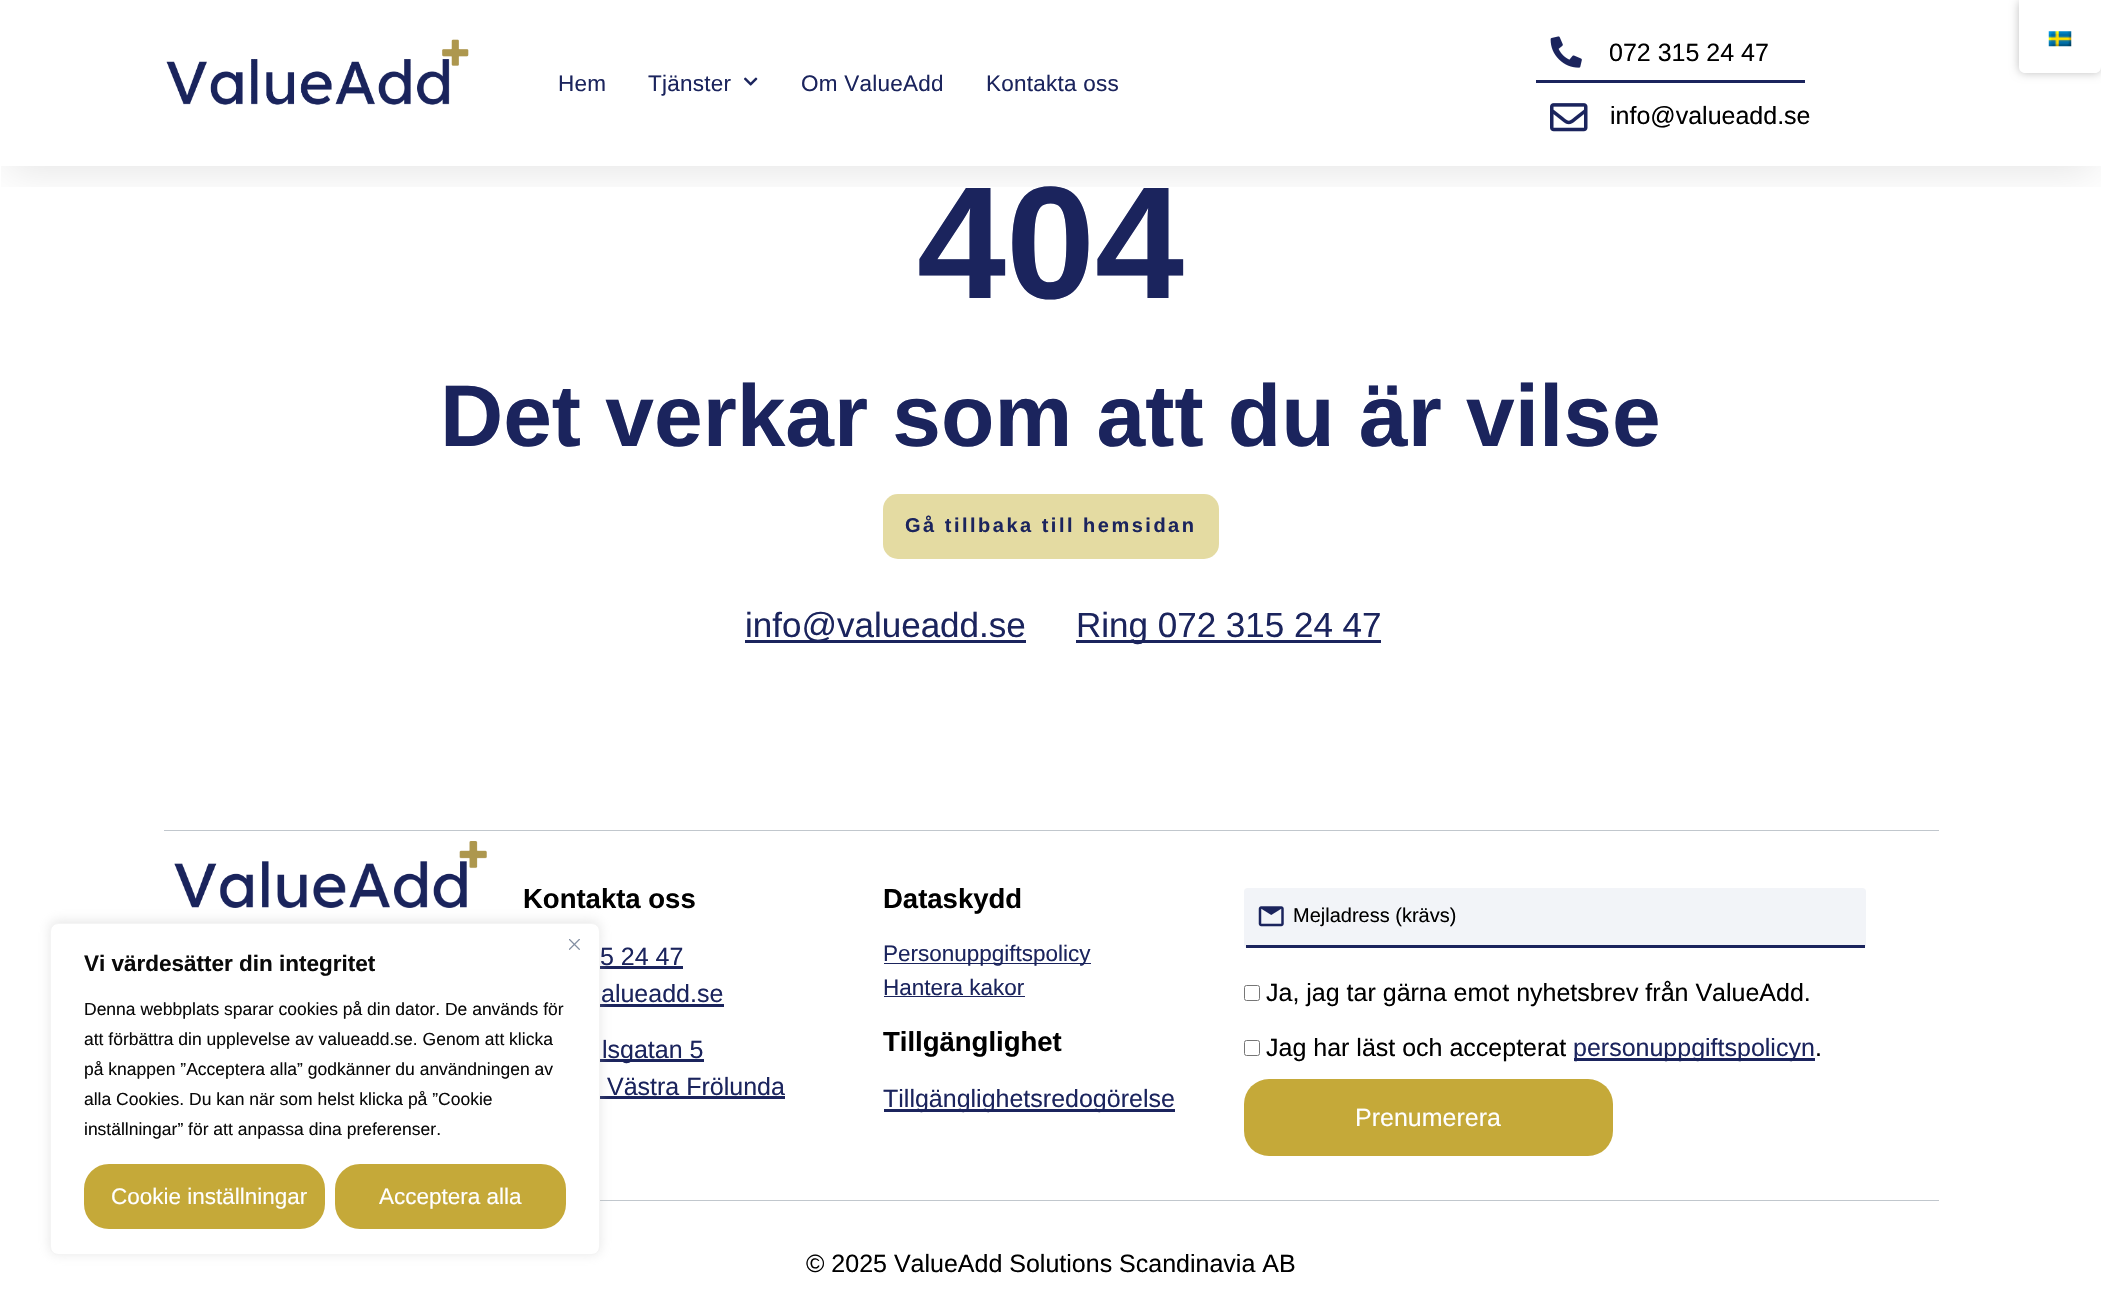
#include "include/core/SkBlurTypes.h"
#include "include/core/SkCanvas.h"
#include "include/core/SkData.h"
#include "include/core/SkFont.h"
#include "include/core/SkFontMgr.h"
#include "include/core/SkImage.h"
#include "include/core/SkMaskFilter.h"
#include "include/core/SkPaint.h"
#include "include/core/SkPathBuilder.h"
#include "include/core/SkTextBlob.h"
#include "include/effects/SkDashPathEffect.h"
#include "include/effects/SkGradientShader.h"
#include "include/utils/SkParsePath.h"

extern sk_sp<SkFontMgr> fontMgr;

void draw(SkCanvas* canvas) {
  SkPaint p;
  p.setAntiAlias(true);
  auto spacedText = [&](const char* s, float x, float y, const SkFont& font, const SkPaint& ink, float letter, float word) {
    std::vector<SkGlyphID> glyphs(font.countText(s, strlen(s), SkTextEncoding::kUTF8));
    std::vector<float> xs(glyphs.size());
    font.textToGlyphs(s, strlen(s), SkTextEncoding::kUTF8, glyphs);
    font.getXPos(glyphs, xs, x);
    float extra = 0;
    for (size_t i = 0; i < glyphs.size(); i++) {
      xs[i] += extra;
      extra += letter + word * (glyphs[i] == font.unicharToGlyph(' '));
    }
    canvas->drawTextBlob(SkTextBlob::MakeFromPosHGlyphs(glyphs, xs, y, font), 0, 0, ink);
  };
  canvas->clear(SK_ColorWHITE);
  canvas->save();
  canvas->clipRect(SkRect::MakeLTRB(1, 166, 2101, 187));
  p.setColor(SkColorSetARGB(26, 0, 0, 0));
  p.setMaskFilter(SkMaskFilter::MakeBlur(kNormal_SkBlurStyle, 19));
  canvas->drawRect(SkRect::MakeLTRB(8, 20, 2094, 171), p);
  p.setMaskFilter(nullptr);
  canvas->restore();
  canvas->drawImageRect(SkImages::DeferredFromEncodedData(SkData::MakeFromFileName("images/1.png")), SkRect::MakeLTRB(166, 39, 469, 105), SkSamplingOptions());
  canvas->drawImageRect(SkImages::DeferredFromEncodedData(SkData::MakeFromFileName("images/2.png")), SkRect::MakeLTRB(744, 77, 758, 86), SkSamplingOptions());
  canvas->drawImageRect(SkImages::DeferredFromEncodedData(SkData::MakeFromFileName("images/3.png")), SkRect::MakeLTRB(1550, 36, 1582, 68), SkSamplingOptions());
  p.setColor(SkColorSetRGB(27, 36, 93));
  canvas->drawRect(SkRect::MakeLTRB(1536, 80, 1805, 83), p);
  canvas->drawImageRect(SkImages::DeferredFromEncodedData(SkData::MakeFromFileName("images/4.png")), SkRect::MakeLTRB(1550, 103, 1588, 132), SkSamplingOptions());
  p.setColor(SkColorSetARGB(64, 0, 0, 0));
  p.setMaskFilter(SkMaskFilter::MakeBlur(kNormal_SkBlurStyle, 5));
  canvas->drawRoundRect(SkRect::MakeLTRB(2019, 0, 2101, 73), 6, 6, p);
  p.setMaskFilter(nullptr);
  p.setColor(SK_ColorWHITE);
  canvas->drawPath(SkPathBuilder().moveTo(2019, 0).lineTo(2101, 0).lineTo(2101, 67).cubicTo(2101, 70.5f, 2098.5f, 73, 2095, 73).lineTo(2025, 73).cubicTo(2021.5f, 73, 2019, 70.5f, 2019, 67).close().detach(), p);
  canvas->drawImageRect(SkImages::DeferredFromEncodedData(SkData::MakeFromFileName("images/5.png")), SkRect::MakeLTRB(2048, 31, 2072, 47), SkSamplingOptions());
  p.setColor(SkColorSetRGB(228, 219, 162));
  canvas->drawRoundRect(SkRect::MakeLTRB(883, 494, 1219, 559), 15, 15, p);
  p.setColor(SkColorSetRGB(27, 36, 93));
  canvas->drawRect(SkRect::MakeLTRB(745, 640, 1026, 643), p);
  canvas->drawRect(SkRect::MakeLTRB(1076, 640, 1381, 643), p);
  canvas->drawImageRect(SkImages::DeferredFromEncodedData(SkData::MakeFromFileName("images/7.png")), SkRect::MakeLTRB(174, 841, 487, 908), SkSamplingOptions());
  canvas->drawRect(SkRect::MakeLTRB(600, 966, 683, 969), p);
  canvas->drawRect(SkRect::MakeLTRB(600, 1004, 724, 1007), p);
  canvas->drawRect(SkRect::MakeLTRB(600, 1059, 704, 1062), p);
  canvas->drawRect(SkRect::MakeLTRB(600, 1096, 785, 1099), p);
  p.setColor(SkColorSetRGB(193, 199, 205));
  canvas->drawRect(SkRect::MakeLTRB(600, 1200, 1939, 1201), p);
  p.setColor(SkColorSetARGB(77, 172, 171, 171));
  p.setMaskFilter(SkMaskFilter::MakeBlur(kNormal_SkBlurStyle, 6));
  canvas->drawRoundRect(SkRect::MakeLTRB(50, 921, 600, 1254), 8, 8, p);
  p.setMaskFilter(nullptr);
  p.setColor(SK_ColorWHITE);
  canvas->drawRoundRect(SkRect::MakeLTRB(50.5f, 923.5f, 599.5f, 1254.5f), 7.5f, 7.5f, p);
  p.setStyle(SkPaint::kStroke_Style);
  p.setStrokeWidth(1);
  p.setColor(SkColorSetRGB(244, 244, 244));
  canvas->drawRoundRect(SkRect::MakeLTRB(50.5f, 923.5f, 599.5f, 1254.5f), 7.5f, 7.5f, p);
  canvas->drawImageRect(SkImages::DeferredFromEncodedData(SkData::MakeFromFileName("images/6.png")), SkRect::MakeLTRB(569, 939, 580, 950), SkSamplingOptions());
  p.setStyle(SkPaint::kFill_Style);
  p.setColor(SkColorSetRGB(197, 169, 57));
  canvas->drawRoundRect(SkRect::MakeLTRB(85.5f, 1165.5f, 323.5f, 1227.5f), 23.5f, 23.5f, p);
  p.setStyle(SkPaint::kStroke_Style);
  p.setStrokeWidth(3);
  canvas->drawRoundRect(SkRect::MakeLTRB(85.5f, 1165.5f, 323.5f, 1227.5f), 23.5f, 23.5f, p);
  p.setStyle(SkPaint::kFill_Style);
  canvas->drawRoundRect(SkRect::MakeLTRB(336.5f, 1165.5f, 564.5f, 1227.5f), 23.5f, 23.5f, p);
  p.setStyle(SkPaint::kStroke_Style);
  canvas->drawRoundRect(SkRect::MakeLTRB(336.5f, 1165.5f, 564.5f, 1227.5f), 23.5f, 23.5f, p);
  p.setStyle(SkPaint::kFill_Style);
  p.setColor(SkColorSetRGB(193, 199, 205));
  canvas->drawRect(SkRect::MakeLTRB(164, 830, 1939, 831), p);
  p.setColor(SkColorSetRGB(27, 36, 93));
  canvas->drawRect(SkRect::MakeLTRB(884, 963, 1091, 964), p);
  canvas->drawRect(SkRect::MakeLTRB(884, 996, 1025, 997), p);
  canvas->drawRect(SkRect::MakeLTRB(884, 1109, 1175, 1112), p);
  p.setColor(SkColorSetRGB(242, 244, 248));
  canvas->drawRoundRect(SkRect::MakeLTRB(1244, 888, 1866, 948), 4, 4, p);
  canvas->drawImageRect(SkImages::DeferredFromEncodedData(SkData::MakeFromFileName("images/8.png")), SkRect::MakeLTRB(1258, 906, 1284, 927), SkSamplingOptions());
  p.setColor(SkColorSetRGB(27, 36, 93));
  canvas->drawRect(SkRect::MakeLTRB(1246, 945, 1865, 948), p);
  p.setStyle(SkPaint::kStroke_Style);
  p.setStrokeWidth(1);
  p.setColor(SkColorSetRGB(118, 118, 118));
  canvas->drawRoundRect(SkRect::MakeLTRB(1244.5f, 985.5f, 1259.5f, 1000.5f), 2, 2, p);
  canvas->drawRoundRect(SkRect::MakeLTRB(1244.5f, 1040.5f, 1259.5f, 1055.5f), 2, 2, p);
  p.setStyle(SkPaint::kFill_Style);
  p.setColor(SkColorSetRGB(27, 36, 93));
  canvas->drawRect(SkRect::MakeLTRB(1574, 1058, 1815, 1061), p);
  p.setColor(SkColorSetRGB(197, 169, 57));
  canvas->drawRoundRect(SkRect::MakeLTRB(1244, 1079, 1613, 1156), 25, 25, p);
  SkFont font1(fontMgr->matchFamilyStyle("Liberation Sans", SkFontStyle::Normal()), 22.5f);
  font1.setSubpixel(true);
  p.setColor(SkColorSetRGB(27, 36, 93));
  spacedText("Hem", 558, 91, font1, p, 0.25f, 0);
  spacedText("Tjänster", 648, 91, font1, p, 0.25f, 0);
  spacedText("Om ValueAdd", 801, 91, font1, p, 0.25f, 0);
  spacedText("Kontakta oss", 986, 91, font1, p, 0.25f, 0);
  SkFont font2(fontMgr->matchFamilyStyle("Liberation Sans", SkFontStyle::Normal()), 25);
  font2.setSubpixel(true);
  p.setColor(SK_ColorBLACK);
  canvas->drawString("072 315 24 47", 1609, 61, font2, p);
  canvas->drawString("info@valueadd.se", 1610, 124, font2, p);
  SkFont font3(fontMgr->matchFamilyStyle("Liberation Sans", SkFontStyle::Bold()), 160);
  font3.setSubpixel(true);
  p.setColor(SkColorSetRGB(27, 36, 93));
  canvas->drawString("404", 917, 298, font3, p);
  SkFont font4(fontMgr->matchFamilyStyle("Liberation Sans", SkFontStyle::Bold()), 87.5f);
  font4.setSubpixel(true);
  canvas->drawString("Det verkar som att du är vilse", 440, 446, font4, p);
  SkFont font5(fontMgr->matchFamilyStyle("Liberation Sans", SkFontStyle::Bold()), 20);
  font5.setSubpixel(true);
  spacedText("Gå tillbaka till hemsidan", 905, 532, font5, p, 2.5f, 0);
  SkFont font6(fontMgr->matchFamilyStyle("Liberation Sans", SkFontStyle::Normal()), 35);
  font6.setSubpixel(true);
  canvas->drawString("info@valueadd.se", 745, 637, font6, p);
  canvas->drawString("Ring 072 315 24 47", 1076, 637, font6, p);
  SkFont font7(fontMgr->matchFamilyStyle("Liberation Sans", SkFontStyle::Bold()), 22.5f);
  font7.setSubpixel(true);
  p.setColor(SkColorSetRGB(10, 10, 10));
  canvas->drawString("Vi värdesätter din integritet", 84, 971, font7, p);
  SkFont font8(fontMgr->matchFamilyStyle("Liberation Sans", SkFontStyle::Normal()), 17.5f);
  font8.setSubpixel(true);
  canvas->drawString("Denna webbplats sparar cookies på din dator. De används för", 84, 1015, font8, p);
  canvas->drawString("att förbättra din upplevelse av valueadd.se. Genom att klicka", 84, 1045, font8, p);
  canvas->drawString("på knappen ”Acceptera alla” godkänner du användningen av", 84, 1075, font8, p);
  canvas->drawString("alla Cookies. Du kan när som helst klicka på ”Cookie", 84, 1105, font8, p);
  canvas->drawString("inställningar” för att anpassa dina preferenser.", 84, 1135, font8, p);
  p.setColor(SK_ColorWHITE);
  canvas->drawString("Cookie inställningar", 111, 1204, font1, p);
  canvas->drawString("Acceptera alla", 379, 1204, font1, p);
  SkFont font9(fontMgr->matchFamilyStyle("Liberation Sans", SkFontStyle::Bold()), 27.5f);
  font9.setSubpixel(true);
  p.setColor(SK_ColorBLACK);
  canvas->drawString("Kontakta oss", 523, 908, font9, p);
  p.setColor(SkColorSetRGB(27, 36, 93));
  canvas->drawString("5 24 47", 600, 965, font2, p);
  canvas->drawString("alueadd.se", 601, 1002, font2, p);
  canvas->drawString("lsgatan 5", 602, 1058, font2, p);
  canvas->drawString("Västra Frölunda", 607, 1095, font2, p);
  p.setColor(SK_ColorBLACK);
  canvas->drawString("Dataskydd", 883, 908, font9, p);
  p.setColor(SkColorSetRGB(27, 36, 93));
  canvas->drawString("Personuppgiftspolicy", 883, 961, font1, p);
  canvas->drawString("Hantera kakor", 883, 995, font1, p);
  p.setColor(SK_ColorBLACK);
  canvas->drawString("Tillgänglighet", 883, 1051, font9, p);
  p.setColor(SkColorSetRGB(27, 36, 93));
  canvas->drawString("Tillgänglighetsredogörelse", 883, 1107, font2, p);
  SkFont font10(fontMgr->matchFamilyStyle("Liberation Sans", SkFontStyle::Normal()), 20);
  font10.setSubpixel(true);
  p.setColor(SK_ColorBLACK);
  canvas->drawString("Mejladress (krävs)", 1293, 922, font10, p);
  canvas->drawString("Ja, jag tar gärna emot nyhetsbrev från ValueAdd.", 1266, 1001, font2, p);
  canvas->drawString("Jag har läst och accepterat", 1266, 1056, font2, p);
  p.setColor(SkColorSetRGB(27, 36, 93));
  canvas->drawString("personuppgiftspolicyn", 1573, 1056, font2, p);
  p.setColor(SK_ColorBLACK);
  canvas->drawString(".", 1815, 1056, font2, p);
  p.setColor(SK_ColorWHITE);
  canvas->drawString("Prenumerera", 1355, 1126, font2, p);
  p.setColor(SK_ColorBLACK);
  canvas->drawString("© 2025 ValueAdd Solutions Scandinavia AB", 806, 1272, font2, p);
}
